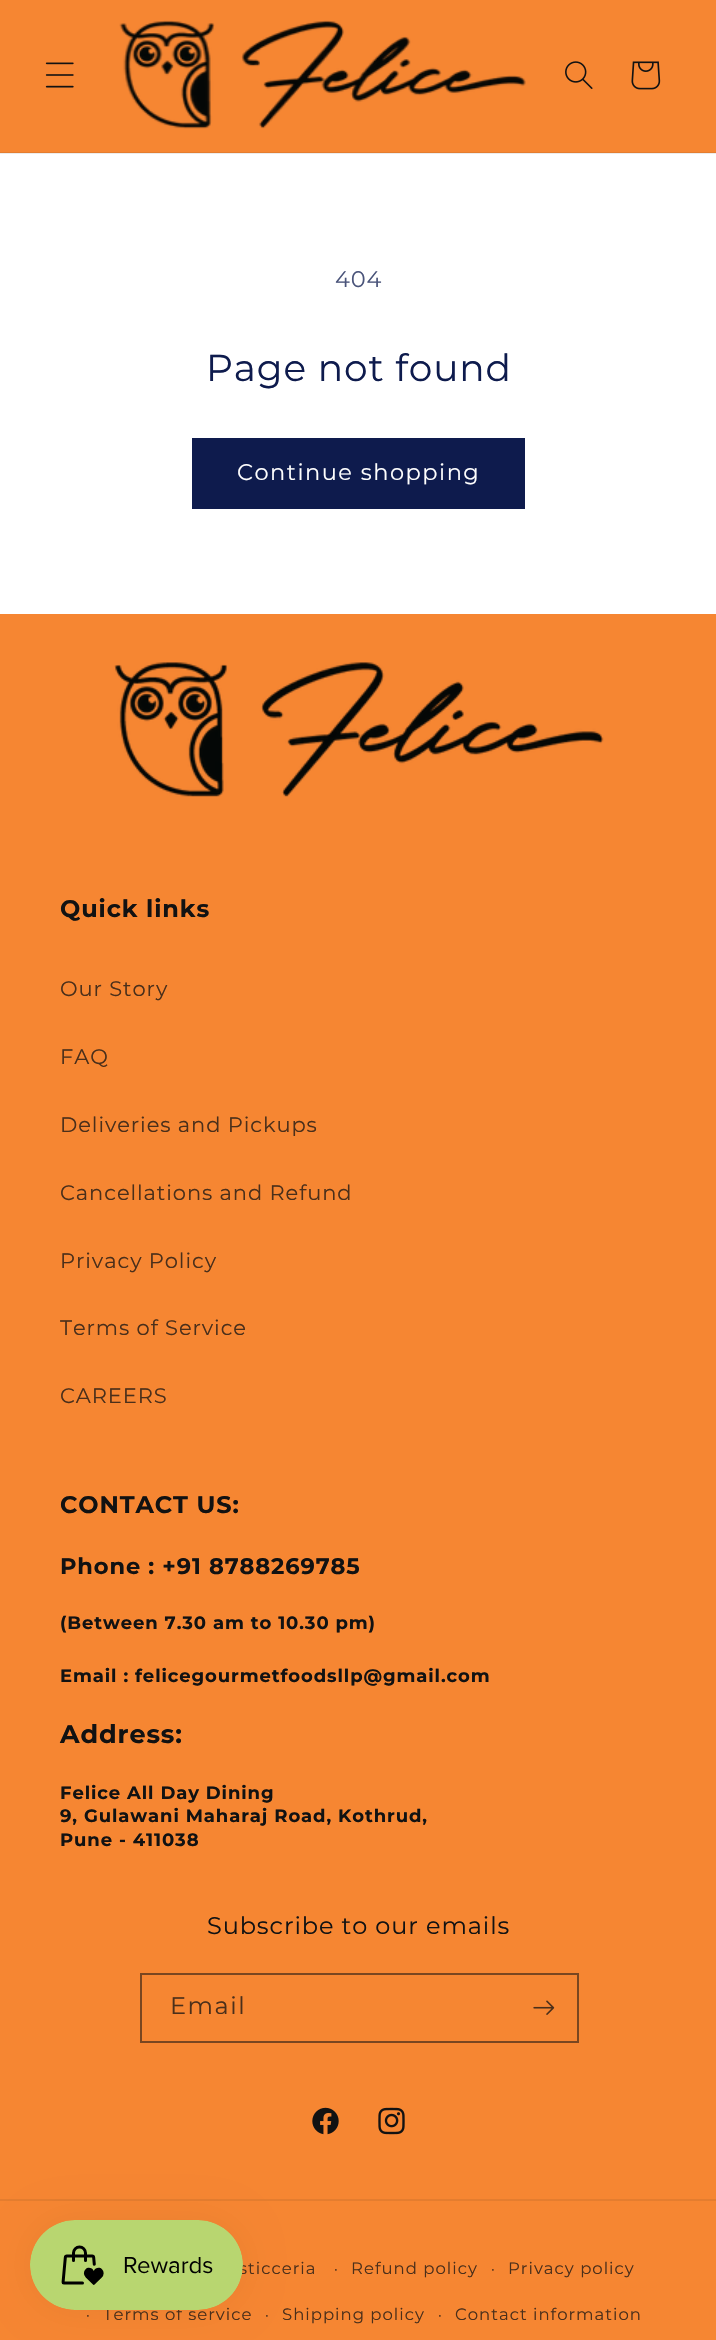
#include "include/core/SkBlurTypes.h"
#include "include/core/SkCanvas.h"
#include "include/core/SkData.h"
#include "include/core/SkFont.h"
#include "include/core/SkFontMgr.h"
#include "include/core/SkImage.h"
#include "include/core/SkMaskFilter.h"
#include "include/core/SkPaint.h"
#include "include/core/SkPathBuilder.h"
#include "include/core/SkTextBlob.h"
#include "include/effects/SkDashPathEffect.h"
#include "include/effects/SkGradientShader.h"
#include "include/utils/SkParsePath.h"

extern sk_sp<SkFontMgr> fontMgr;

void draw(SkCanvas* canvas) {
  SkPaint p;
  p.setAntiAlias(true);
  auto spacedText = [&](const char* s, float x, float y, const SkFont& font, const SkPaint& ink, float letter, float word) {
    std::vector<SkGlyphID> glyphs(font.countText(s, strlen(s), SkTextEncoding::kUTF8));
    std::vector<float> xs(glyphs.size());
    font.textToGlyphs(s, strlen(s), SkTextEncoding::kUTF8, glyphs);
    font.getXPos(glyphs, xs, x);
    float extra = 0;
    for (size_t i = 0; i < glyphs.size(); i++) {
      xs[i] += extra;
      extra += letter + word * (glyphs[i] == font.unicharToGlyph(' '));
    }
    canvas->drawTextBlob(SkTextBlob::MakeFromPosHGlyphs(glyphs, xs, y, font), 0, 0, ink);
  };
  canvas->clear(SK_ColorWHITE);
  p.setColor(SkColorSetRGB(236, 236, 236));
  canvas->drawRect(SkRect::MakeLTRB(0, 153, 716, 154), p);
  p.setColor(SkColorSetRGB(246, 134, 50));
  canvas->drawRect(SkRect::MakeLTRB(0, 0, 716, 152), p);
  p.setColor(SkColorSetRGB(228, 125, 47));
  canvas->drawRect(SkRect::MakeLTRB(0, 152, 716, 153), p);
  canvas->drawImageRect(SkImages::DeferredFromEncodedData(SkData::MakeFromFileName("images/1.png")), SkRect::MakeLTRB(45, 62, 74, 88), SkSamplingOptions());
  canvas->drawImageRect(SkImages::DeferredFromEncodedData(SkData::MakeFromFileName("images/2.png")), SkRect::MakeLTRB(119, 20, 526, 129), SkSamplingOptions());
  canvas->drawImageRect(SkImages::DeferredFromEncodedData(SkData::MakeFromFileName("images/3.png")), SkRect::MakeLTRB(565, 61, 593, 89), SkSamplingOptions());
  canvas->drawImageRect(SkImages::DeferredFromEncodedData(SkData::MakeFromFileName("images/4.png")), SkRect::MakeLTRB(631, 61, 661, 90), SkSamplingOptions());
  p.setColor(SkColorSetRGB(14, 27, 77));
  canvas->drawRect(SkRect::MakeLTRB(192, 438, 525, 509), p);
  p.setColor(SkColorSetRGB(246, 134, 50));
  canvas->drawRect(SkRect::MakeLTRB(0, 614, 716, 2340), p);
  canvas->drawImageRect(SkImages::DeferredFromEncodedData(SkData::MakeFromFileName("images/5.png")), SkRect::MakeLTRB(114, 662, 604, 797), SkSamplingOptions());
  p.setStyle(SkPaint::kStroke_Style);
  p.setStrokeWidth(2);
  p.setColor(SkColorSetRGB(121, 70, 32));
  canvas->drawRect(SkRect::MakeLTRB(141, 1974, 578, 2042), p);
  canvas->drawImageRect(SkImages::DeferredFromEncodedData(SkData::MakeFromFileName("images/6.png")), SkRect::MakeLTRB(533, 2000, 555, 2015), SkSamplingOptions());
  canvas->drawImageRect(SkImages::DeferredFromEncodedData(SkData::MakeFromFileName("images/7.png")), SkRect::MakeLTRB(312, 2107, 339, 2135), SkSamplingOptions());
  canvas->drawImageRect(SkImages::DeferredFromEncodedData(SkData::MakeFromFileName("images/8.png")), SkRect::MakeLTRB(378, 2107, 405, 2135), SkSamplingOptions());
  p.setStyle(SkPaint::kFill_Style);
  p.setColor(SkColorSetRGB(228, 125, 47));
  canvas->drawRect(SkRect::MakeLTRB(0, 2199, 716, 2201), p);
  p.setColor(SkColorSetARGB(13, 0, 0, 0));
  p.setMaskFilter(SkMaskFilter::MakeBlur(kNormal_SkBlurStyle, 19));
  canvas->drawRoundRect(SkRect::MakeLTRB(30, 2220, 243, 2310), 45, 45, p);
  p.setMaskFilter(nullptr);
  SkFont font1(fontMgr->matchFamilyStyle("Montserrat", SkFontStyle::Normal()), 22.5f);
  font1.setSubpixel(true);
  p.setColor(SkColorSetRGB(74, 84, 122));
  spacedText("404", 335, 287, font1, p, 0.9f, 0);
  SkFont font2(fontMgr->matchFamilyStyle("Montserrat", SkFontStyle::Normal()), 37.5f);
  font2.setSubpixel(true);
  p.setColor(SkColorSetRGB(14, 27, 77));
  spacedText("Page not found", 206, 381, font2, p, 0.9f, 0);
  p.setColor(SK_ColorWHITE);
  spacedText("Continue shopping", 237, 480, font1, p, 1.5f, 0);
  SkFont font3(fontMgr->matchFamilyStyle("Montserrat", SkFontStyle::Bold()), 24);
  font3.setSubpixel(true);
  p.setColor(SkColorSetRGB(18, 18, 18));
  spacedText("Quick links", 60, 917, font3, p, 0.9f, 0);
  SkFont font4(fontMgr->matchFamilyStyle("Montserrat", SkFontStyle::Normal()), 21);
  font4.setSubpixel(true);
  p.setColor(SkColorSetRGB(75, 47, 26));
  spacedText("Our Story", 60, 996, font4, p, 0.9f, 0);
  spacedText("FAQ", 60, 1064, font4, p, 0.9f, 0);
  spacedText("Deliveries and Pickups", 60, 1132, font4, p, 0.9f, 0);
  spacedText("Cancellations and Refund", 60, 1200, font4, p, 0.9f, 0);
  spacedText("Privacy Policy", 60, 1268, font4, p, 0.9f, 0);
  spacedText("Terms of Service", 60, 1335, font4, p, 0.9f, 0);
  spacedText("CAREERS", 60, 1403, font4, p, 0.9f, 0);
  p.setColor(SkColorSetRGB(18, 18, 18));
  spacedText("CONTACT US:", 60, 1513, font3, p, 0.9f, 0);
  SkFont font5(fontMgr->matchFamilyStyle("Montserrat", SkFontStyle::Bold()), 22.5f);
  font5.setSubpixel(true);
  spacedText("Phone : +91 8788269785", 60, 1574, font5, p, 0.9f, 0);
  SkFont font6(fontMgr->matchFamilyStyle("Montserrat", SkFontStyle::Bold()), 18);
  font6.setSubpixel(true);
  spacedText("(Between 7.30 am to 10.30 pm)", 60, 1629, font6, p, 0.9f, 0);
  spacedText("Email : felicegourmetfoodsllp@gmail.com", 60, 1682, font6, p, 0.9f, 0);
  SkFont font7(fontMgr->matchFamilyStyle("Montserrat", SkFontStyle::Bold()), 25.5f);
  font7.setSubpixel(true);
  spacedText("Address:", 60, 1743, font7, p, 0.9f, 0);
  spacedText("Felice All Day Dining", 60, 1799, font6, p, 0.9f, 0);
  spacedText("9, Gulawani Maharaj Road, Kothrud,", 60, 1822, font6, p, 0.9f, 0);
  spacedText("Pune - 411038", 60, 1846, font6, p, 0.9f, 0);
  SkFont font8(fontMgr->matchFamilyStyle("Montserrat", SkFontStyle::Normal()), 24);
  font8.setSubpixel(true);
  spacedText("Subscribe to our emails", 207, 1934, font8, p, 0.9f, 0);
  p.setColor(SkColorSetRGB(75, 47, 26));
  spacedText("Email", 170, 2014, font8, p, 1.5f, 0);
  SkFont font9(fontMgr->matchFamilyStyle("Montserrat", SkFontStyle::Normal()), 15);
  font9.setSubpixel(true);
  spacedText("·", 334, 2274, font9, p, 1, 0);
  SkFont font10(fontMgr->matchFamilyStyle("Montserrat", SkFontStyle::Normal()), 16.5f);
  font10.setSubpixel(true);
  spacedText("Refund policy", 351, 2274, font10, p, 1, 0);
  spacedText("·", 491, 2274, font9, p, 1, 0);
  spacedText("Privacy policy", 508, 2274, font10, p, 1, 0);
  spacedText("·", 86, 2320, font9, p, 1, 0);
  spacedText("Terms of service", 103, 2320, font10, p, 1, 0);
  spacedText("·", 265, 2320, font9, p, 1, 0);
  spacedText("Shipping policy", 282, 2320, font10, p, 1, 0);
  spacedText("·", 438, 2320, font9, p, 1, 0);
  spacedText("Contact information", 455, 2320, font10, p, 1, 0);
  spacedText("sticceria", 239, 2274, font10, p, 1, 0);
  canvas->drawImageRect(SkImages::DeferredFromEncodedData(SkData::MakeFromFileName("images/9.png")), SkRect::MakeLTRB(30, 2220, 243, 2310), SkSamplingOptions());
}
